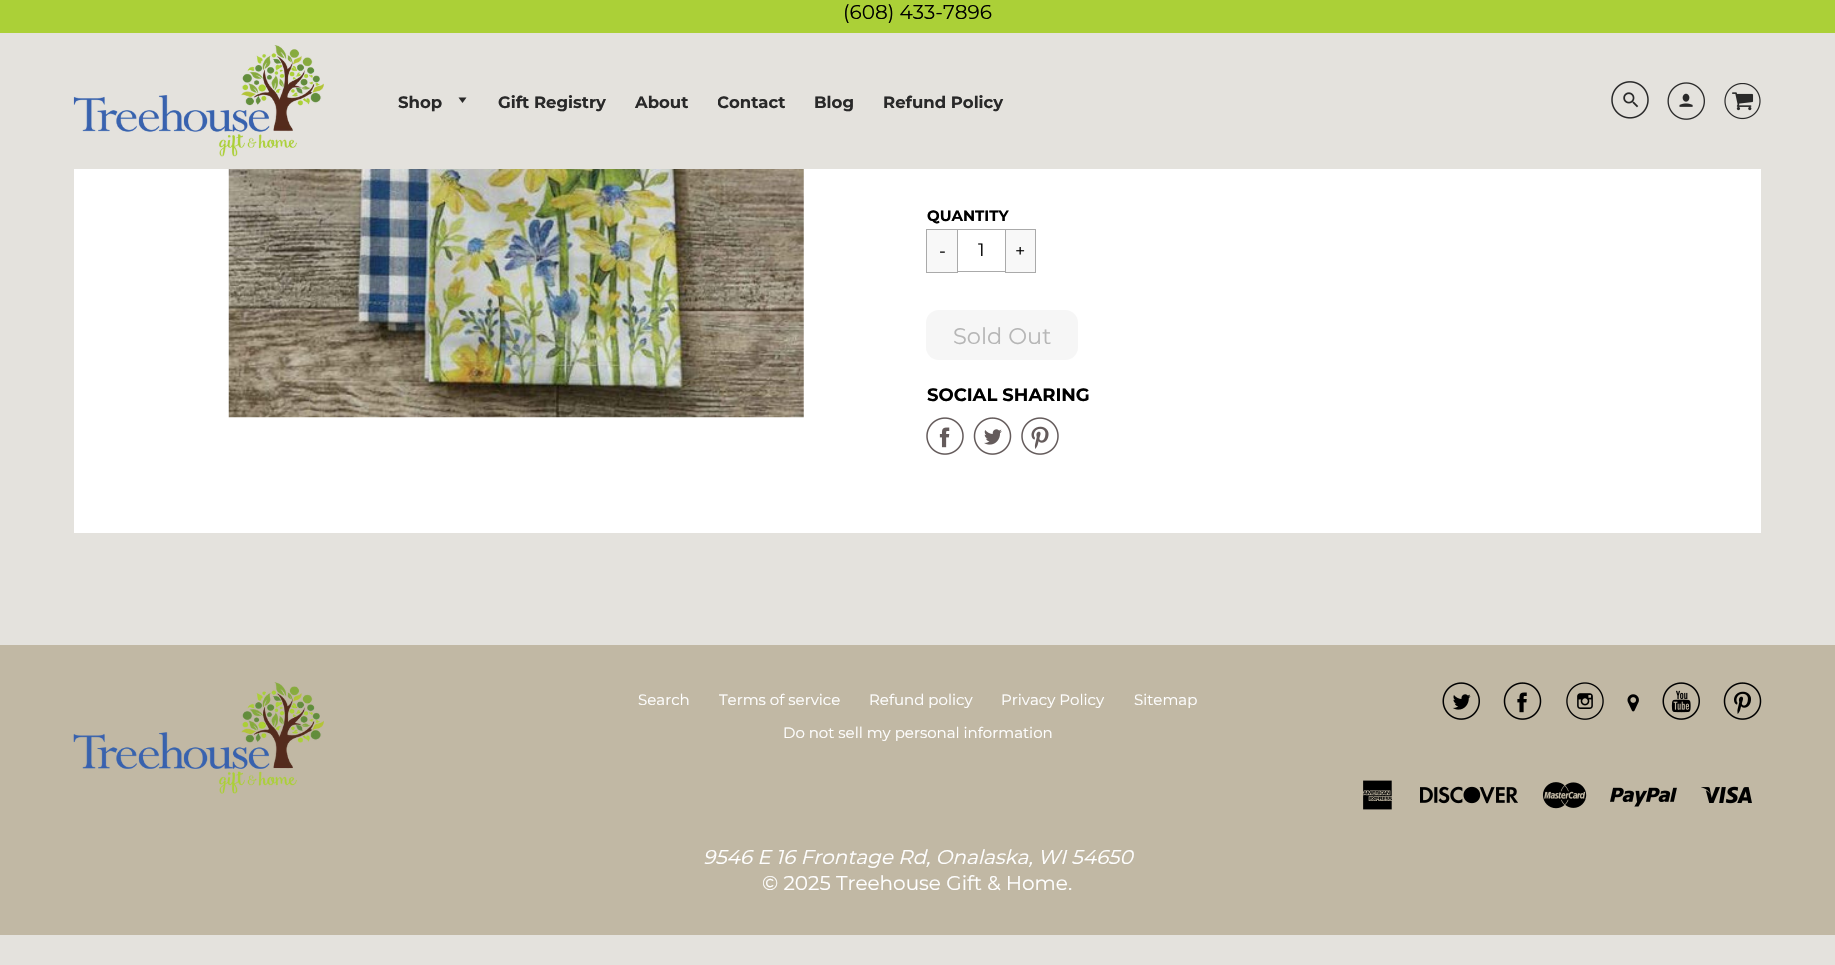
#include "include/core/SkBlurTypes.h"
#include "include/core/SkCanvas.h"
#include "include/core/SkData.h"
#include "include/core/SkFont.h"
#include "include/core/SkFontMgr.h"
#include "include/core/SkImage.h"
#include "include/core/SkMaskFilter.h"
#include "include/core/SkPaint.h"
#include "include/core/SkPathBuilder.h"
#include "include/core/SkTextBlob.h"
#include "include/effects/SkDashPathEffect.h"
#include "include/effects/SkGradientShader.h"
#include "include/utils/SkParsePath.h"

extern sk_sp<SkFontMgr> fontMgr;

void draw(SkCanvas* canvas) {
  SkPaint p;
  p.setAntiAlias(true);
  canvas->clear(SkColorSetRGB(228, 226, 221));
  p.setColor(SkColorSetRGB(171, 208, 55));
  canvas->drawRect(SkRect::MakeLTRB(0, 0, 1835, 33), p);
  canvas->drawImageRect(SkImages::DeferredFromEncodedData(SkData::MakeFromFileName("images/1.png")), SkRect::MakeLTRB(73, 45, 324, 157), SkSamplingOptions());
  p.setColor(SkColorSetRGB(41, 41, 41));
  canvas->drawPath(SkPathBuilder().moveTo(458.5f, 97.5f).lineTo(462.5f, 103).lineTo(466.5f, 97.5f).close().detach(), p);
  canvas->drawImageRect(SkImages::DeferredFromEncodedData(SkData::MakeFromFileName("images/2.png")), SkRect::MakeLTRB(1611, 81, 1649, 119), SkSamplingOptions());
  canvas->drawImageRect(SkImages::DeferredFromEncodedData(SkData::MakeFromFileName("images/3.png")), SkRect::MakeLTRB(1667, 82, 1705, 120), SkSamplingOptions());
  canvas->drawImageRect(SkImages::DeferredFromEncodedData(SkData::MakeFromFileName("images/4.png")), SkRect::MakeLTRB(1724, 83, 1761, 120), SkSamplingOptions());
  p.setColor(SK_ColorWHITE);
  canvas->drawRect(SkRect::MakeLTRB(74, 169, 1761, 533), p);
  canvas->drawImageRect(SkImages::DeferredFromEncodedData(SkData::MakeFromFileName("images/5.png")), SkRect::MakeLTRB(228, 169, 804, 418), SkSamplingOptions());
  p.setColor(SkColorSetRGB(170, 170, 170));
  canvas->drawRect(SkRect::MakeLTRB(956, 229, 1006, 230), p);
  canvas->drawRect(SkRect::MakeLTRB(956, 271, 1006, 272), p);
  p.setColor(SkColorSetRGB(248, 248, 248));
  canvas->drawRect(SkRect::MakeLTRB(926.5f, 229.5f, 957.5f, 272.5f), p);
  p.setStyle(SkPaint::kStroke_Style);
  p.setStrokeWidth(1);
  p.setColor(SkColorSetRGB(170, 170, 170));
  canvas->drawRect(SkRect::MakeLTRB(926.5f, 229.5f, 957.5f, 272.5f), p);
  p.setStyle(SkPaint::kFill_Style);
  p.setColor(SkColorSetRGB(248, 248, 248));
  canvas->drawRect(SkRect::MakeLTRB(1005.5f, 229.5f, 1035.5f, 272.5f), p);
  p.setStyle(SkPaint::kStroke_Style);
  p.setColor(SkColorSetRGB(170, 170, 170));
  canvas->drawRect(SkRect::MakeLTRB(1005.5f, 229.5f, 1035.5f, 272.5f), p);
  p.setStyle(SkPaint::kFill_Style);
  p.setColor(SkColorSetRGB(246, 246, 246));
  canvas->drawRoundRect(SkRect::MakeLTRB(926, 310, 1078, 360), 13, 13, p);
  canvas->drawImageRect(SkImages::DeferredFromEncodedData(SkData::MakeFromFileName("images/6.png")), SkRect::MakeLTRB(926, 417, 964, 455), SkSamplingOptions());
  canvas->drawImageRect(SkImages::DeferredFromEncodedData(SkData::MakeFromFileName("images/7.png")), SkRect::MakeLTRB(973, 417, 1012, 455), SkSamplingOptions());
  canvas->drawImageRect(SkImages::DeferredFromEncodedData(SkData::MakeFromFileName("images/8.png")), SkRect::MakeLTRB(1021, 417, 1059, 455), SkSamplingOptions());
  p.setColor(SkColorSetRGB(193, 184, 164));
  canvas->drawRect(SkRect::MakeLTRB(0, 645, 1835, 935), p);
  canvas->drawImageRect(SkImages::DeferredFromEncodedData(SkData::MakeFromFileName("images/9.png")), SkRect::MakeLTRB(73, 682, 324, 794), SkSamplingOptions());
  canvas->drawImageRect(SkImages::DeferredFromEncodedData(SkData::MakeFromFileName("images/10.png")), SkRect::MakeLTRB(1442, 682, 1480, 720), SkSamplingOptions());
  canvas->drawImageRect(SkImages::DeferredFromEncodedData(SkData::MakeFromFileName("images/11.png")), SkRect::MakeLTRB(1503, 682, 1542, 720), SkSamplingOptions());
  canvas->drawImageRect(SkImages::DeferredFromEncodedData(SkData::MakeFromFileName("images/12.png")), SkRect::MakeLTRB(1566, 682, 1604, 720), SkSamplingOptions());
  canvas->drawImageRect(SkImages::DeferredFromEncodedData(SkData::MakeFromFileName("images/13.png")), SkRect::MakeLTRB(1627, 694, 1639, 712), SkSamplingOptions());
  canvas->drawImageRect(SkImages::DeferredFromEncodedData(SkData::MakeFromFileName("images/14.png")), SkRect::MakeLTRB(1662, 682, 1700, 720), SkSamplingOptions());
  canvas->drawImageRect(SkImages::DeferredFromEncodedData(SkData::MakeFromFileName("images/15.png")), SkRect::MakeLTRB(1723, 682, 1762, 720), SkSamplingOptions());
  canvas->drawImageRect(SkImages::DeferredFromEncodedData(SkData::MakeFromFileName("images/16.png")), SkRect::MakeLTRB(1363, 780, 1392, 810), SkSamplingOptions());
  canvas->drawImageRect(SkImages::DeferredFromEncodedData(SkData::MakeFromFileName("images/17.png")), SkRect::MakeLTRB(1420, 786, 1518, 804), SkSamplingOptions());
  canvas->drawImageRect(SkImages::DeferredFromEncodedData(SkData::MakeFromFileName("images/18.png")), SkRect::MakeLTRB(1542, 782, 1587, 809), SkSamplingOptions());
  canvas->drawImageRect(SkImages::DeferredFromEncodedData(SkData::MakeFromFileName("images/19.png")), SkRect::MakeLTRB(1610, 787, 1677, 807), SkSamplingOptions());
  canvas->drawImageRect(SkImages::DeferredFromEncodedData(SkData::MakeFromFileName("images/20.png")), SkRect::MakeLTRB(1701, 786, 1752, 804), SkSamplingOptions());
  SkFont font1(fontMgr->matchFamilyStyle("Montserrat", SkFontStyle::Normal()), 20);
  font1.setSubpixel(true);
  p.setColor(SK_ColorBLACK);
  canvas->drawString("(608) 433-7896", 843, 19, font1, p);
  SkFont font2(fontMgr->matchFamilyStyle("Montserrat", SkFontStyle::Bold()), 16.5f);
  font2.setSubpixel(true);
  p.setColor(SkColorSetRGB(41, 41, 41));
  canvas->drawString("Shop", 398, 108, font2, p);
  canvas->drawString("Gift Registry", 498, 108, font2, p);
  canvas->drawString("About", 635, 108, font2, p);
  canvas->save();
  canvas->clipRect(SkRect::MakeLTRB(718, 91, 785, 113));
  canvas->drawString("Contact", 717, 108, font2, p);
  canvas->restore();
  canvas->drawString("Blog", 814, 108, font2, p);
  canvas->drawString("Refund Policy", 883, 108, font2, p);
  SkFont font3(fontMgr->matchFamilyStyle("Montserrat", SkFontStyle::Bold()), 15);
  font3.setSubpixel(true);
  p.setColor(SK_ColorBLACK);
  canvas->drawString("QUANTITY", 927, 221, font3, p);
  SkFont font4(fontMgr->matchFamilyStyle("Montserrat", SkFontStyle::Normal()), 18);
  font4.setSubpixel(true);
  canvas->drawString("-", 939, 257, font4, p);
  canvas->drawString("1", 978, 256, font4, p);
  canvas->drawString("+", 1015, 257, font4, p);
  SkFont font5(fontMgr->matchFamilyStyle("Montserrat", SkFontStyle::Normal()), 22.5f);
  font5.setSubpixel(true);
  p.setColor(SkColorSetRGB(182, 182, 182));
  canvas->drawString("Sold Out", 953, 344, font5, p);
  SkFont font6(fontMgr->matchFamilyStyle("Montserrat", SkFontStyle::Bold()), 18);
  font6.setSubpixel(true);
  p.setColor(SK_ColorBLACK);
  canvas->drawString("SOCIAL SHARING", 927, 401, font6, p);
  SkFont font7(fontMgr->matchFamilyStyle("Montserrat", SkFontStyle::Normal()), 15);
  font7.setSubpixel(true);
  p.setColor(SK_ColorWHITE);
  canvas->drawString("Search", 638, 705, font7, p);
  canvas->drawString("Terms of service", 719, 705, font7, p);
  canvas->drawString("Refund policy", 869, 705, font7, p);
  canvas->drawString("Privacy Policy", 1001, 705, font7, p);
  canvas->drawString("Sitemap", 1134, 705, font7, p);
  canvas->drawString("Do not sell my personal information", 783, 738, font7, p);
  SkFont font8(fontMgr->matchFamilyStyle("Montserrat", SkFontStyle::Italic()), 20);
  font8.setSubpixel(true);
  canvas->drawString("9546 E 16 Frontage Rd, Onalaska, WI 54650", 703, 864, font8, p);
  canvas->drawString("© 2025 Treehouse Gift & Home.", 762, 890, font1, p);
}
